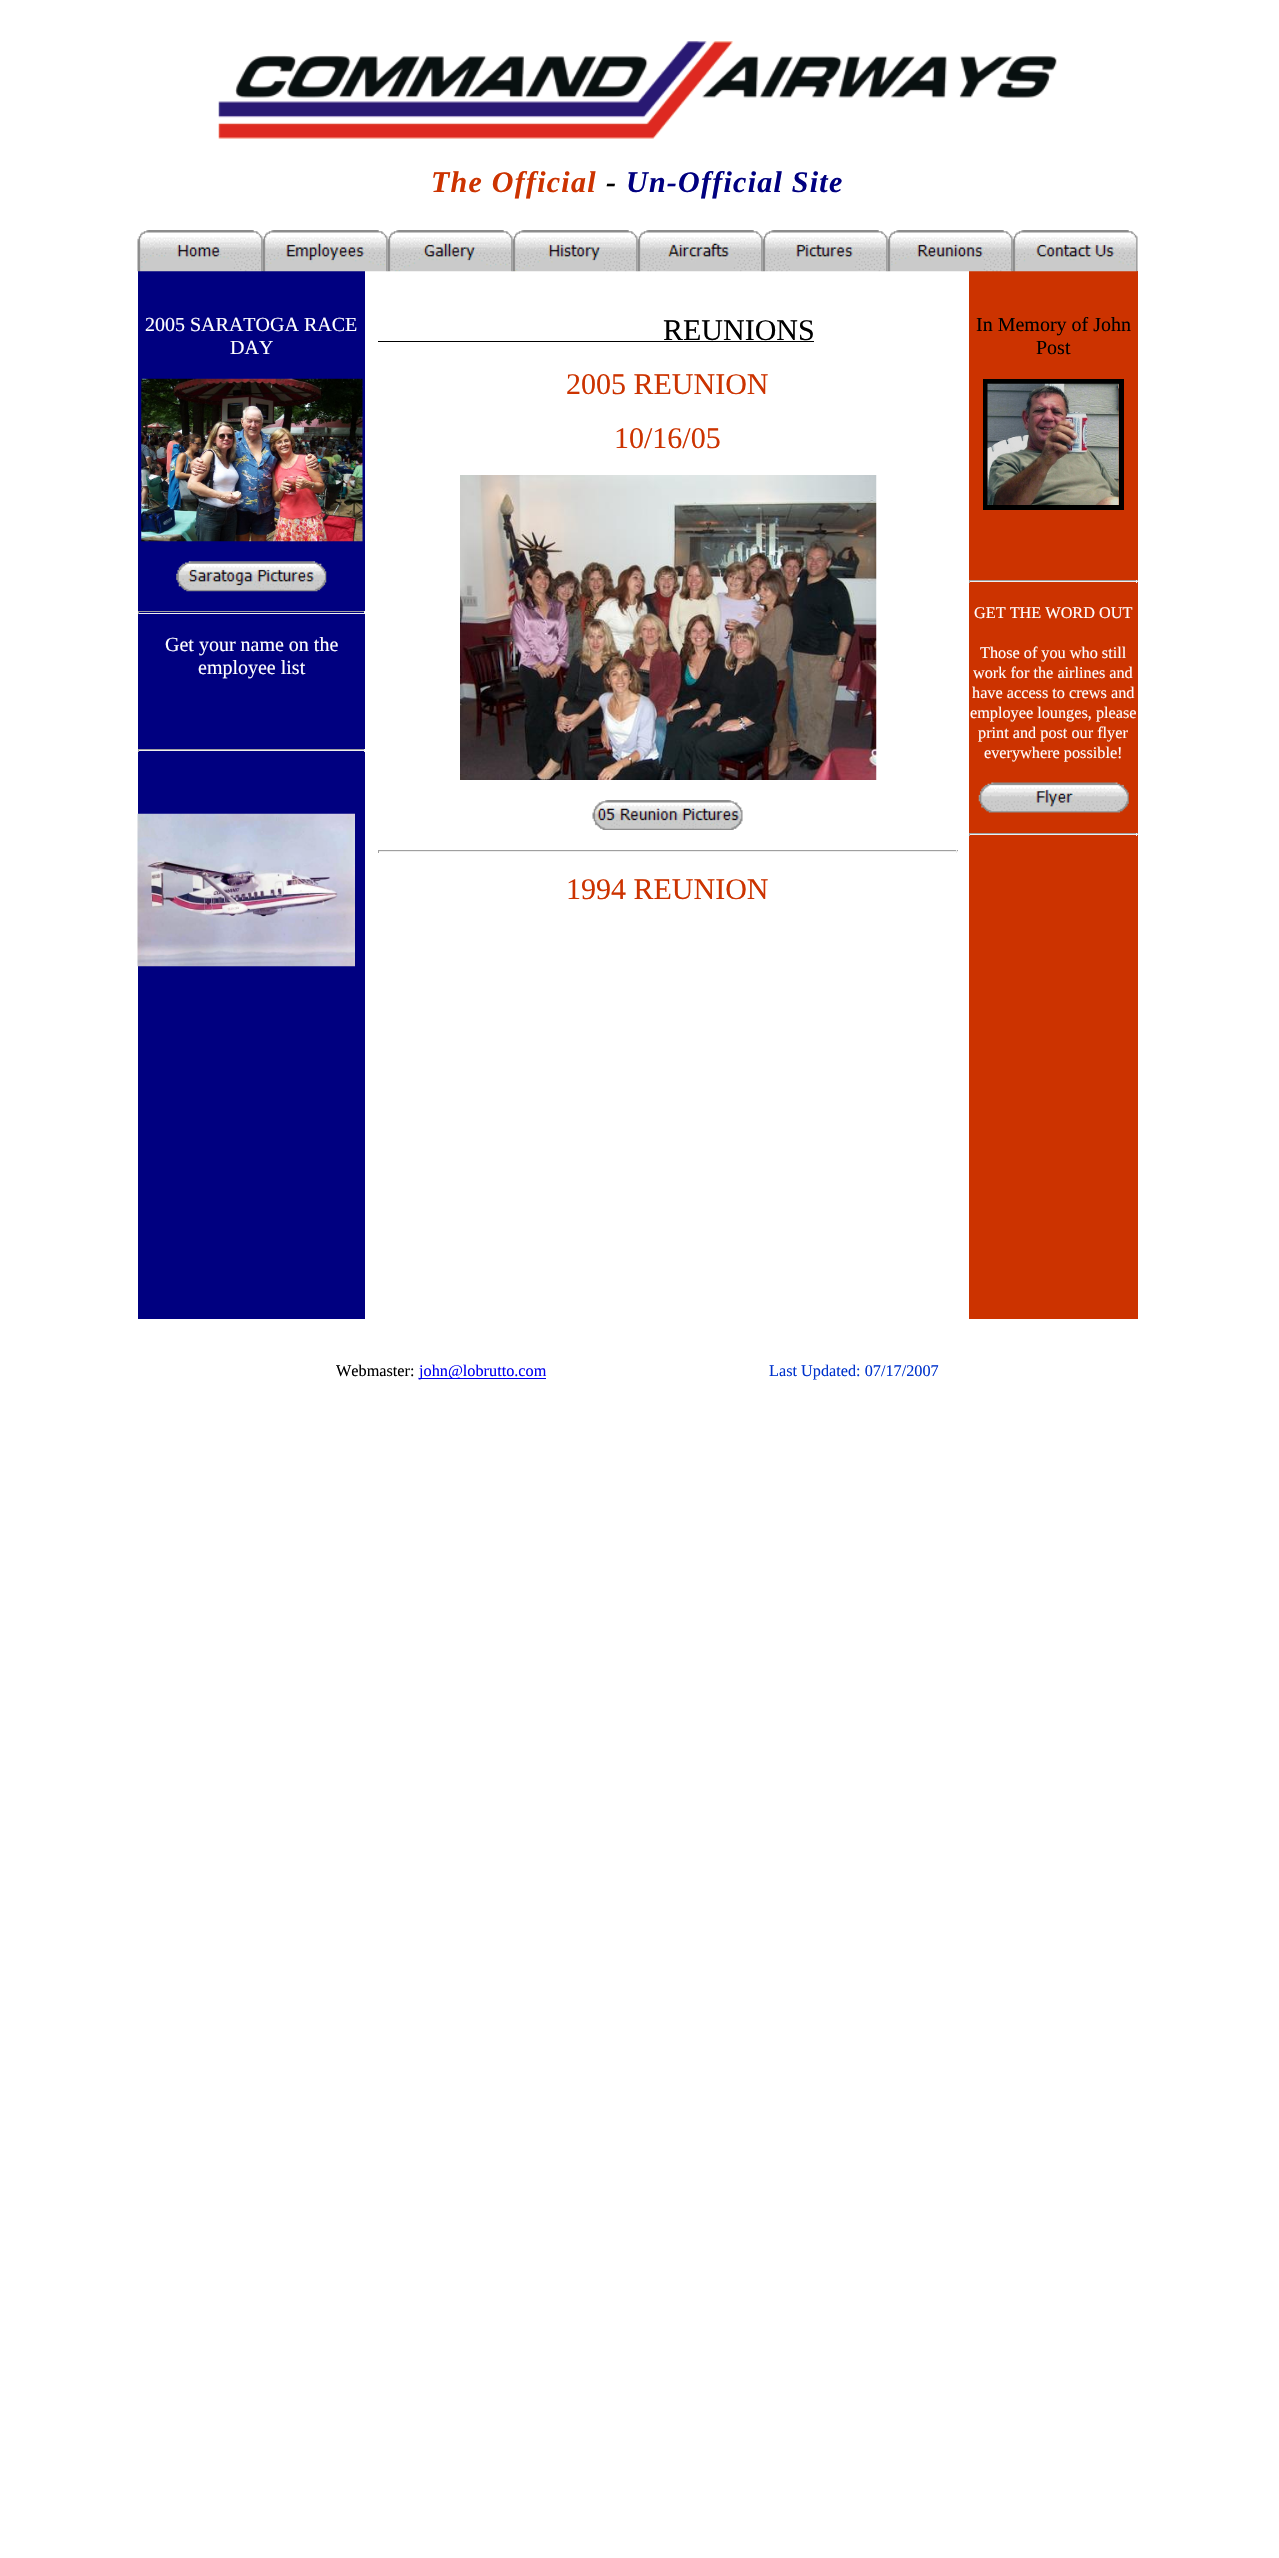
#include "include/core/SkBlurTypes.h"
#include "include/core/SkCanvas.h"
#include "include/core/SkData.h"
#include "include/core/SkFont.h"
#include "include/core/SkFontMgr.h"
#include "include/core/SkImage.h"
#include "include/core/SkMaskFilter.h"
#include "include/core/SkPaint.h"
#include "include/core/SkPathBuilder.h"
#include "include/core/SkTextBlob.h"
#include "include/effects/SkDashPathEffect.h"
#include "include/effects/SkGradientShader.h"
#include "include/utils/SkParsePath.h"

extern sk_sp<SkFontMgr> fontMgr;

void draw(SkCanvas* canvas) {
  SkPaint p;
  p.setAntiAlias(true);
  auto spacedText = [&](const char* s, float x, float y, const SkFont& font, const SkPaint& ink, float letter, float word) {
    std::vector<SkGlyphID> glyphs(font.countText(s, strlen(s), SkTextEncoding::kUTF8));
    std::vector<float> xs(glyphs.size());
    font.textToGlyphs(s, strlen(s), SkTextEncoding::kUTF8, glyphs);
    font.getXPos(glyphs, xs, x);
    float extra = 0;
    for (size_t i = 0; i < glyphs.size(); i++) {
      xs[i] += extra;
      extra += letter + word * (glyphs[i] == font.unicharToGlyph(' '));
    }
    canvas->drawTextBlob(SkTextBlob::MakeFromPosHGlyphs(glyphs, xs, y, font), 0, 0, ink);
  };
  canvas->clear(SK_ColorWHITE);
  canvas->drawImageRect(SkImages::DeferredFromEncodedData(SkData::MakeFromFileName("images/1.png")), SkRect::MakeLTRB(218, 41, 1057, 139), SkSamplingOptions());
  p.setColor(SkColorSetRGB(0, 0, 128));
  canvas->drawRect(SkRect::MakeLTRB(138, 271, 365, 1319), p);
  canvas->drawImageRect(SkImages::DeferredFromEncodedData(SkData::MakeFromFileName("images/2.png")), SkRect::MakeLTRB(137, 230, 263, 272), SkSamplingOptions());
  canvas->drawImageRect(SkImages::DeferredFromEncodedData(SkData::MakeFromFileName("images/3.png")), SkRect::MakeLTRB(262, 230, 388, 272), SkSamplingOptions());
  canvas->drawImageRect(SkImages::DeferredFromEncodedData(SkData::MakeFromFileName("images/4.png")), SkRect::MakeLTRB(387, 230, 513, 272), SkSamplingOptions());
  canvas->drawImageRect(SkImages::DeferredFromEncodedData(SkData::MakeFromFileName("images/5.png")), SkRect::MakeLTRB(512, 230, 638, 272), SkSamplingOptions());
  canvas->drawImageRect(SkImages::DeferredFromEncodedData(SkData::MakeFromFileName("images/6.png")), SkRect::MakeLTRB(637, 230, 763, 272), SkSamplingOptions());
  canvas->drawImageRect(SkImages::DeferredFromEncodedData(SkData::MakeFromFileName("images/7.png")), SkRect::MakeLTRB(762, 230, 888, 272), SkSamplingOptions());
  p.setColor(SkColorSetRGB(204, 51, 0));
  canvas->drawRect(SkRect::MakeLTRB(969, 271, 1138, 1319), p);
  canvas->drawImageRect(SkImages::DeferredFromEncodedData(SkData::MakeFromFileName("images/8.png")), SkRect::MakeLTRB(887, 230, 1013, 272), SkSamplingOptions());
  canvas->drawImageRect(SkImages::DeferredFromEncodedData(SkData::MakeFromFileName("images/9.png")), SkRect::MakeLTRB(1012, 230, 1138, 272), SkSamplingOptions());
  canvas->drawImageRect(SkImages::DeferredFromEncodedData(SkData::MakeFromFileName("images/10.png")), SkRect::MakeLTRB(141, 378, 363, 542), SkSamplingOptions());
  canvas->drawImageRect(SkImages::DeferredFromEncodedData(SkData::MakeFromFileName("images/11.png")), SkRect::MakeLTRB(176, 561, 327, 592), SkSamplingOptions());
  p.setColor(SkColorSetRGB(159, 159, 159));
  canvas->drawRect(SkRect::MakeLTRB(138, 611, 365, 612), p);
  p.setColor(SkColorSetRGB(238, 238, 238));
  canvas->drawRect(SkRect::MakeLTRB(364, 611, 365, 614), p);
  canvas->drawRect(SkRect::MakeLTRB(138, 613, 365, 614), p);
  p.setColor(SkColorSetRGB(159, 159, 159));
  canvas->drawRect(SkRect::MakeLTRB(138, 611, 139, 614), p);
  canvas->drawRect(SkRect::MakeLTRB(138, 749, 365, 750), p);
  p.setColor(SkColorSetRGB(238, 238, 238));
  canvas->drawRect(SkRect::MakeLTRB(364, 749, 365, 752), p);
  canvas->drawRect(SkRect::MakeLTRB(138, 750, 365, 751), p);
  p.setColor(SkColorSetRGB(159, 159, 159));
  canvas->drawRect(SkRect::MakeLTRB(138, 749, 139, 752), p);
  canvas->drawImageRect(SkImages::DeferredFromEncodedData(SkData::MakeFromFileName("images/12.png")), SkRect::MakeLTRB(137, 813, 355, 967), SkSamplingOptions());
  p.setColor(SK_ColorBLACK);
  canvas->drawRect(SkRect::MakeLTRB(378, 341, 814, 342), p);
  canvas->drawImageRect(SkImages::DeferredFromEncodedData(SkData::MakeFromFileName("images/13.png")), SkRect::MakeLTRB(460, 475, 877, 780), SkSamplingOptions());
  canvas->drawImageRect(SkImages::DeferredFromEncodedData(SkData::MakeFromFileName("images/14.png")), SkRect::MakeLTRB(592, 800, 743, 830), SkSamplingOptions());
  p.setColor(SkColorSetRGB(159, 159, 159));
  canvas->drawRect(SkRect::MakeLTRB(378, 850, 958, 851), p);
  p.setColor(SkColorSetRGB(238, 238, 238));
  canvas->drawRect(SkRect::MakeLTRB(956, 850, 957, 853), p);
  canvas->drawRect(SkRect::MakeLTRB(378, 851, 958, 852), p);
  p.setColor(SkColorSetRGB(159, 159, 159));
  canvas->drawRect(SkRect::MakeLTRB(378, 850, 379, 853), p);
  p.setStyle(SkPaint::kStroke_Style);
  p.setStrokeWidth(5);
  p.setColor(SK_ColorBLACK);
  canvas->drawRect(SkRect::MakeLTRB(985.5f, 381.5f, 1121.5f, 507.5f), p);
  canvas->drawImageRect(SkImages::DeferredFromEncodedData(SkData::MakeFromFileName("images/15.png")), SkRect::MakeLTRB(987, 383, 1119, 505), SkSamplingOptions());
  p.setStyle(SkPaint::kFill_Style);
  p.setColor(SkColorSetRGB(159, 159, 159));
  canvas->drawRect(SkRect::MakeLTRB(969, 580, 1138, 581), p);
  p.setColor(SkColorSetRGB(238, 238, 238));
  canvas->drawRect(SkRect::MakeLTRB(1136, 580, 1137, 583), p);
  canvas->drawRect(SkRect::MakeLTRB(969, 581, 1138, 582), p);
  p.setColor(SkColorSetRGB(159, 159, 159));
  canvas->drawRect(SkRect::MakeLTRB(969, 580, 970, 583), p);
  canvas->drawImageRect(SkImages::DeferredFromEncodedData(SkData::MakeFromFileName("images/16.png")), SkRect::MakeLTRB(978, 782, 1129, 813), SkSamplingOptions());
  canvas->drawRect(SkRect::MakeLTRB(969, 833, 1138, 834), p);
  p.setColor(SkColorSetRGB(238, 238, 238));
  canvas->drawRect(SkRect::MakeLTRB(1136, 833, 1137, 836), p);
  canvas->drawRect(SkRect::MakeLTRB(969, 834, 1138, 835), p);
  p.setColor(SkColorSetRGB(159, 159, 159));
  canvas->drawRect(SkRect::MakeLTRB(969, 833, 970, 836), p);
  p.setColor(SkColorSetRGB(0, 0, 238));
  canvas->drawRect(SkRect::MakeLTRB(419, 1378, 546, 1379), p);
  SkFont font1(fontMgr->matchFamilyStyle("Liberation Serif", SkFontStyle::BoldItalic()), 30);
  font1.setSubpixel(true);
  p.setColor(SkColorSetRGB(204, 51, 0));
  spacedText("The Official", 431, 192, font1, p, 1.25f, 0);
  p.setColor(SK_ColorBLACK);
  spacedText("-", 606, 192, font1, p, 1.25f, 0);
  p.setColor(SkColorSetRGB(0, 0, 128));
  spacedText("Un-Official Site", 626, 192, font1, p, 1.25f, 0);
  SkFont font2(fontMgr->matchFamilyStyle("Liberation Serif", SkFontStyle::Normal()), 20);
  font2.setSubpixel(true);
  p.setColor(SK_ColorWHITE);
  canvas->drawString("2005 SARATOGA RACE", 145, 331, font2, p);
  canvas->drawString("DAY", 230, 354, font2, p);
  canvas->drawString("Get your name on the", 165, 651, font2, p);
  canvas->drawString("employee list", 198, 674, font2, p);
  SkFont font3(fontMgr->matchFamilyStyle("Liberation Serif", SkFontStyle::Normal()), 30);
  font3.setSubpixel(true);
  p.setColor(SK_ColorBLACK);
  canvas->drawString("REUNIONS", 663, 340, font3, p);
  p.setColor(SkColorSetRGB(204, 51, 0));
  canvas->drawString("2005 REUNION", 566, 394, font3, p);
  canvas->drawString("10/16/05", 614, 448, font3, p);
  canvas->drawString("1994 REUNION", 566, 899, font3, p);
  p.setColor(SK_ColorBLACK);
  canvas->drawString("In Memory of John", 976, 331, font2, p);
  canvas->drawString("Post", 1036, 354, font2, p);
  SkFont font4(fontMgr->matchFamilyStyle("Liberation Serif", SkFontStyle::Normal()), 16.25f);
  font4.setSubpixel(true);
  p.setColor(SK_ColorWHITE);
  canvas->drawString("GET THE WORD OUT", 974, 618, font4, p);
  canvas->drawString("Those of you who still", 980, 658, font4, p);
  canvas->drawString("work for the airlines and", 973, 678, font4, p);
  canvas->drawString("have access to crews and", 972, 698, font4, p);
  canvas->drawString("employee lounges, please", 970, 718, font4, p);
  canvas->drawString("print and post our flyer", 978, 738, font4, p);
  canvas->drawString("everywhere possible!", 984, 758, font4, p);
  p.setColor(SK_ColorBLACK);
  canvas->drawString("Webmaster:", 336, 1376, font4, p);
  p.setColor(SkColorSetRGB(0, 0, 238));
  canvas->drawString("john@lobrutto.com", 419, 1376, font4, p);
  p.setColor(SkColorSetRGB(0, 51, 204));
  canvas->drawString("Last Updated: 07/17/2007", 769, 1376, font4, p);
}
